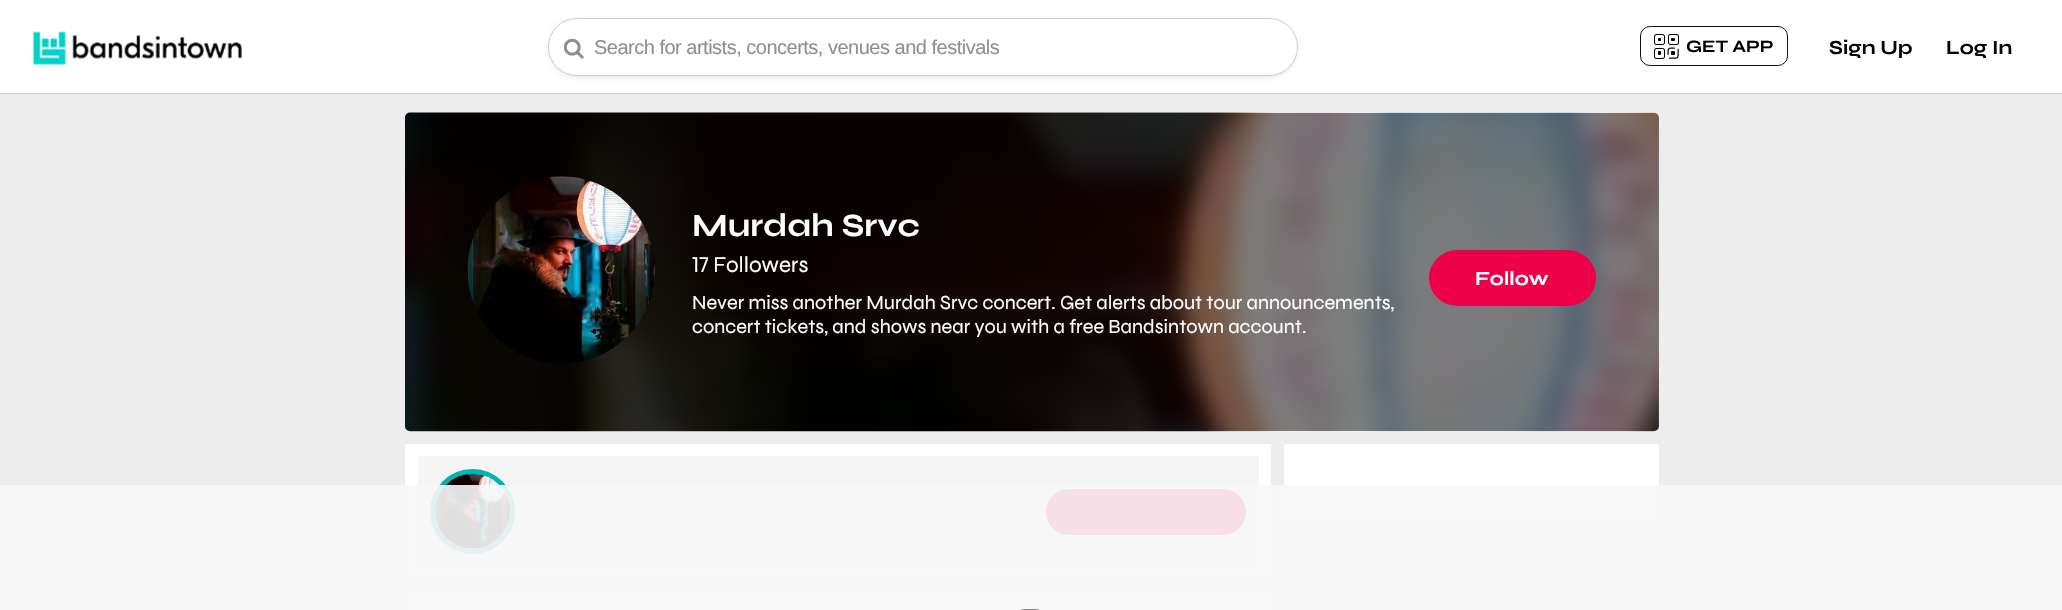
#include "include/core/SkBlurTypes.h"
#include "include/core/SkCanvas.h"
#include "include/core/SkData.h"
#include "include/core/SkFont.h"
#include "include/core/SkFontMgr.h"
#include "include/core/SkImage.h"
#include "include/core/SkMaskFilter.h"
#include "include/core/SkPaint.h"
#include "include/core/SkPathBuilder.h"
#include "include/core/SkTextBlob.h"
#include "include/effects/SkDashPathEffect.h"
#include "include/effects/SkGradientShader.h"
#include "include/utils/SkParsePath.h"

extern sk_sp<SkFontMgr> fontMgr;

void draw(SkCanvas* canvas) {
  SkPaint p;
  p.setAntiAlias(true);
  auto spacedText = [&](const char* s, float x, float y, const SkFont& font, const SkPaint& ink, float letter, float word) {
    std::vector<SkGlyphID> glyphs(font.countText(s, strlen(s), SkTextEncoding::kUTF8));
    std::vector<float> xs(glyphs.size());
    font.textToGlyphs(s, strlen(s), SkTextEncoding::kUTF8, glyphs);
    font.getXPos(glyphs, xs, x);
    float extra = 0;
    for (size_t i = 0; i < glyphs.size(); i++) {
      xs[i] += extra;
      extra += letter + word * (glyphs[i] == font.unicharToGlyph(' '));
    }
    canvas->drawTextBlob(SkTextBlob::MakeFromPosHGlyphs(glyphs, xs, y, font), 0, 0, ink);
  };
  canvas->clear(SkColorSetRGB(237, 237, 237));
  p.setColor(SK_ColorWHITE);
  canvas->drawRect(SkRect::MakeLTRB(0, 0, 2062, 93), p);
  p.setColor(SkColorSetRGB(205, 205, 205));
  canvas->drawRect(SkRect::MakeLTRB(0, 93, 2062, 94), p);
  canvas->drawImageRect(SkImages::DeferredFromEncodedData(SkData::MakeFromFileName("images/1.png")), SkRect::MakeLTRB(32, 31, 242, 65), SkSamplingOptions());
  p.setColor(SkColorSetARGB(20, 0, 0, 0));
  p.setMaskFilter(SkMaskFilter::MakeBlur(kNormal_SkBlurStyle, 2));
  canvas->drawRoundRect(SkRect::MakeLTRB(548, 19, 1298, 78), 29.5f, 29.5f, p);
  p.setMaskFilter(nullptr);
  p.setColor(SK_ColorWHITE);
  canvas->drawRoundRect(SkRect::MakeLTRB(548.5f, 18.5f, 1297.5f, 75.5f), 28.5f, 28.5f, p);
  p.setStyle(SkPaint::kStroke_Style);
  p.setStrokeWidth(1);
  p.setColor(SkColorSetRGB(205, 205, 205));
  canvas->drawRoundRect(SkRect::MakeLTRB(548.5f, 18.5f, 1297.5f, 75.5f), 28.5f, 28.5f, p);
  canvas->drawImageRect(SkImages::DeferredFromEncodedData(SkData::MakeFromFileName("images/2.png")), SkRect::MakeLTRB(564, 39, 584, 59), SkSamplingOptions());
  p.setColor(SkColorSetRGB(17, 17, 17));
  canvas->drawRoundRect(SkRect::MakeLTRB(1640.5f, 26.5f, 1787.5f, 65.5f), 9.5f, 9.5f, p);
  canvas->drawImageRect(SkImages::DeferredFromEncodedData(SkData::MakeFromFileName("images/3.png")), SkRect::MakeLTRB(1654, 34, 1679, 59), SkSamplingOptions());
  p.setStyle(SkPaint::kFill_Style);
  p.setColor(SK_ColorWHITE);
  canvas->drawRoundRect(SkRect::MakeLTRB(405, 113, 1659, 431), 5, 5, p);
  canvas->drawImageRect(SkImages::DeferredFromEncodedData(SkData::MakeFromFileName("images/4.png")), SkRect::MakeLTRB(405, 112, 1659, 432), SkSamplingOptions());
  p.setColor(SkColorSetARGB(128, 0, 0, 0));
  canvas->drawRoundRect(SkRect::MakeLTRB(405, 113, 1659, 431), 5, 5, p);
  canvas->drawImageRect(SkImages::DeferredFromEncodedData(SkData::MakeFromFileName("images/5.png")), SkRect::MakeLTRB(467, 176, 655, 363), SkSamplingOptions());
  p.setColor(SkColorSetRGB(235, 0, 73));
  canvas->drawRoundRect(SkRect::MakeLTRB(1429, 250, 1596, 306), 28, 28, p);
  p.setColor(SK_ColorWHITE);
  canvas->drawRect(SkRect::MakeLTRB(405, 444, 1271, 579), p);
  p.setColor(SkColorSetRGB(245, 245, 245));
  canvas->drawRect(SkRect::MakeLTRB(418, 456, 1259, 566), p);
  p.setStyle(SkPaint::kStroke_Style);
  p.setStrokeWidth(5);
  p.setColor(SkColorSetRGB(0, 180, 179));
  canvas->drawCircle(472.5f, 511.5f, 40, p);
  canvas->drawImageRect(SkImages::DeferredFromEncodedData(SkData::MakeFromFileName("images/6.png")), SkRect::MakeLTRB(435, 473, 510, 549), SkSamplingOptions());
  p.setStyle(SkPaint::kFill_Style);
  p.setColor(SkColorSetRGB(235, 0, 73));
  canvas->drawRoundRect(SkRect::MakeLTRB(1046, 489, 1246, 535), 23, 23, p);
  p.setColor(SK_ColorWHITE);
  canvas->drawRect(SkRect::MakeLTRB(405, 591, 1271, 610), p);
  canvas->drawRoundRect(SkRect::MakeLTRB(1284, 444, 1659, 521), 2.5f, 2.5f, p);
  canvas->drawRoundRect(SkRect::MakeLTRB(1284, 451, 1659, 521), 2.5f, 2.5f, p);
  p.setColor(SkColorSetARGB(230, 247, 247, 247));
  canvas->drawRect(SkRect::MakeLTRB(0, 485, 2062, 610), p);
  p.setStyle(SkPaint::kStroke_Style);
  p.setStrokeWidth(1);
  p.setColor(SkColorSetRGB(136, 136, 136));
  canvas->drawRoundRect(SkRect::MakeLTRB(1016.5f, 609.5f, 1043.5f, 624.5f), 13, 13, p);
  SkFont font1(fontMgr->matchFamilyStyle("Liberation Sans", SkFontStyle::Normal()), 20);
  font1.setSubpixel(true);
  p.setStyle(SkPaint::kFill_Style);
  p.setColor(SkColorSetRGB(143, 143, 143));
  spacedText("Search for artists, concerts, venues and festivals", 594, 54, font1, p, -0.5f, 0);
  SkFont font2(fontMgr->matchFamilyStyle("Syne", SkFontStyle::Bold()), 17.5f);
  font2.setSubpixel(true);
  p.setColor(SK_ColorBLACK);
  canvas->drawString("GET APP", 1686, 52, font2, p);
  SkFont font3(fontMgr->matchFamilyStyle("Syne", SkFontStyle::Bold()), 20);
  font3.setSubpixel(true);
  canvas->drawString("Sign Up", 1829, 54, font3, p);
  canvas->drawString("Log In", 1946, 54, font3, p);
  SkFont font4(fontMgr->matchFamilyStyle("Syne", SkFontStyle::Bold()), 32.5f);
  font4.setSubpixel(true);
  p.setColor(SK_ColorWHITE);
  canvas->drawString("Murdah Srvc", 692, 236, font4, p);
  SkFont font5(fontMgr->matchFamilyStyle("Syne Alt", SkFontStyle::Normal()), 22.5f);
  font5.setSubpixel(true);
  canvas->drawString("17 Followers", 692, 272, font5, p);
  SkFont font6(fontMgr->matchFamilyStyle("Syne", SkFontStyle::Normal()), 20);
  font6.setSubpixel(true);
  canvas->drawString("Never miss another Murdah Srvc concert. Get alerts about tour announcements,", 692, 309, font6, p);
  canvas->drawString("concert tickets, and shows near you with a free Bandsintown account.", 692, 333, font6, p);
  canvas->drawString("Follow", 1475, 285, font3, p);
}
